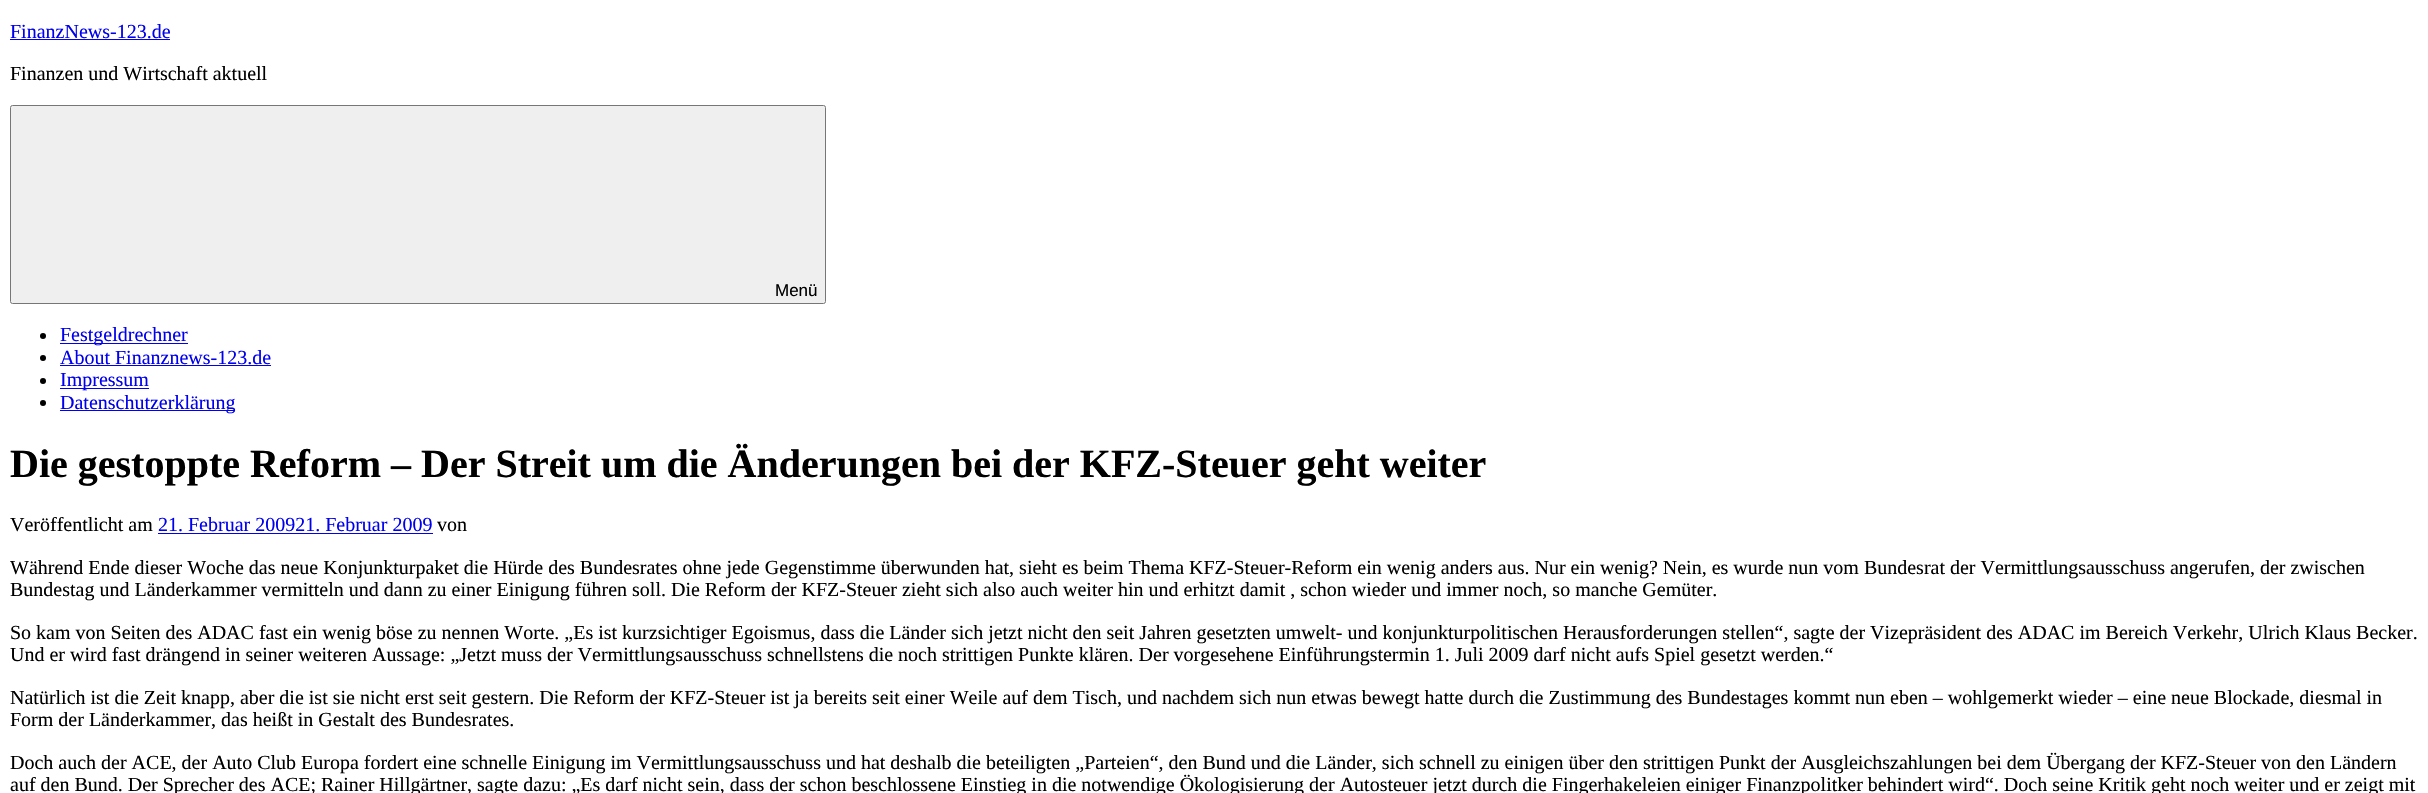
#include "include/core/SkBlurTypes.h"
#include "include/core/SkCanvas.h"
#include "include/core/SkData.h"
#include "include/core/SkFont.h"
#include "include/core/SkFontMgr.h"
#include "include/core/SkImage.h"
#include "include/core/SkMaskFilter.h"
#include "include/core/SkPaint.h"
#include "include/core/SkPathBuilder.h"
#include "include/core/SkTextBlob.h"
#include "include/effects/SkDashPathEffect.h"
#include "include/effects/SkGradientShader.h"
#include "include/utils/SkParsePath.h"

extern sk_sp<SkFontMgr> fontMgr;

void draw(SkCanvas* canvas) {
  SkPaint p;
  p.setAntiAlias(true);
  canvas->clear(SK_ColorWHITE);
  p.setColor(SkColorSetRGB(0, 0, 238));
  canvas->drawRect(SkRect::MakeLTRB(10, 39, 170, 40), p);
  p.setColor(SkColorSetRGB(239, 239, 239));
  canvas->drawRoundRect(SkRect::MakeLTRB(10.5f, 105.5f, 825.5f, 303.5f), 2, 2, p);
  p.setStyle(SkPaint::kStroke_Style);
  p.setStrokeWidth(1);
  p.setColor(SkColorSetRGB(118, 118, 118));
  canvas->drawRoundRect(SkRect::MakeLTRB(10.5f, 105.5f, 825.5f, 303.5f), 2, 2, p);
  p.setStyle(SkPaint::kFill_Style);
  p.setColor(SK_ColorBLACK);
  canvas->drawCircle(43, 336, 3, p);
  p.setColor(SkColorSetRGB(0, 0, 238));
  canvas->drawRect(SkRect::MakeLTRB(60, 343, 188, 344), p);
  p.setColor(SK_ColorBLACK);
  canvas->drawCircle(43, 358, 3, p);
  p.setColor(SkColorSetRGB(0, 0, 238));
  canvas->drawRect(SkRect::MakeLTRB(60, 365, 271, 366), p);
  p.setColor(SK_ColorBLACK);
  canvas->drawCircle(43, 381, 3, p);
  p.setColor(SkColorSetRGB(0, 0, 238));
  canvas->drawRect(SkRect::MakeLTRB(60, 388, 149, 389), p);
  p.setColor(SK_ColorBLACK);
  canvas->drawCircle(43, 403, 3, p);
  p.setColor(SkColorSetRGB(0, 0, 238));
  canvas->drawRect(SkRect::MakeLTRB(60, 410, 235, 411), p);
  canvas->drawRect(SkRect::MakeLTRB(158, 533, 433, 534), p);
  SkFont font1(fontMgr->matchFamilyStyle("Liberation Serif", SkFontStyle::Normal()), 20);
  font1.setSubpixel(true);
  canvas->drawString("FinanzNews-123.de", 10, 38, font1, p);
  p.setColor(SK_ColorBLACK);
  canvas->drawString("Finanzen und Wirtschaft aktuell", 10, 80, font1, p);
  SkFont font2(fontMgr->matchFamilyStyle("Liberation Sans", SkFontStyle::Normal()), 17);
  font2.setSubpixel(true);
  canvas->drawString("Menü", 775, 296, font2, p);
  p.setColor(SkColorSetRGB(0, 0, 238));
  canvas->drawString("Festgeldrechner", 60, 341, font1, p);
  canvas->drawString("About Finanznews-123.de", 60, 364, font1, p);
  canvas->drawString("Impressum", 60, 386, font1, p);
  canvas->drawString("Datenschutzerklärung", 60, 409, font1, p);
  SkFont font3(fontMgr->matchFamilyStyle("Liberation Serif", SkFontStyle::Bold()), 40);
  font3.setSubpixel(true);
  p.setColor(SK_ColorBLACK);
  canvas->drawString("Die gestoppte Reform – Der Streit um die Änderungen bei der KFZ-Steuer geht weiter", 10, 477, font3, p);
  canvas->drawString("Veröffentlicht am", 10, 531, font1, p);
  p.setColor(SkColorSetRGB(0, 0, 238));
  canvas->drawString("21. Februar 200921. Februar 2009", 158, 531, font1, p);
  p.setColor(SK_ColorBLACK);
  canvas->drawString("von", 437, 531, font1, p);
  canvas->drawString("Während Ende dieser Woche das neue Konjunkturpaket die Hürde des Bundesrates ohne jede Gegenstimme überwunden hat, sieht es beim Thema KFZ-Steuer-Reform ein wenig anders aus. Nur ein wenig? Nein, es wurde nun vom Bundesrat der Vermittlungsausschuss angerufen, der zwischen", 10, 574, font1, p);
  canvas->drawString("Bundestag und Länderkammer vermitteln und dann zu einer Einigung führen soll. Die Reform der KFZ-Steuer zieht sich also auch weiter hin und erhitzt damit , schon wieder und immer noch, so manche Gemüter.", 10, 596, font1, p);
  canvas->drawString("So kam von Seiten des ADAC fast ein wenig böse zu nennen Worte. „Es ist kurzsichtiger Egoismus, dass die Länder sich jetzt nicht den seit Jahren gesetzten umwelt- und konjunkturpolitischen Herausforderungen stellen“, sagte der Vizepräsident des ADAC im Bereich Verkehr, Ulrich Klaus Becker.", 10, 639, font1, p);
  canvas->drawString("Und er wird fast drängend in seiner weiteren Aussage: „Jetzt muss der Vermittlungsausschuss schnellstens die noch strittigen Punkte klären. Der vorgesehene Einführungstermin 1. Juli 2009 darf nicht aufs Spiel gesetzt werden.“", 10, 661, font1, p);
  canvas->drawString("Natürlich ist die Zeit knapp, aber die ist sie nicht erst seit gestern. Die Reform der KFZ-Steuer ist ja bereits seit einer Weile auf dem Tisch, und nachdem sich nun etwas bewegt hatte durch die Zustimmung des Bundestages kommt nun eben – wohlgemerkt wieder – eine neue Blockade, diesmal in", 10, 704, font1, p);
  canvas->drawString("Form der Länderkammer, das heißt in Gestalt des Bundesrates.", 10, 726, font1, p);
  canvas->drawString("Doch auch der ACE, der Auto Club Europa fordert eine schnelle Einigung im Vermittlungsausschuss und hat deshalb die beteiligten „Parteien“, den Bund und die Länder, sich schnell zu einigen über den strittigen Punkt der Ausgleichszahlungen bei dem Übergang der KFZ-Steuer von den Ländern", 10, 769, font1, p);
  canvas->drawString("auf den Bund. Der Sprecher des ACE; Rainer Hillgärtner, sagte dazu: „Es darf nicht sein, dass der schon beschlossene Einstieg in die notwendige Ökologisierung der Autosteuer jetzt durch die Fingerhakeleien einiger Finanzpolitker behindert wird“. Doch seine Kritik geht noch weiter und er zeigt mit", 10, 791, font1, p);
}
